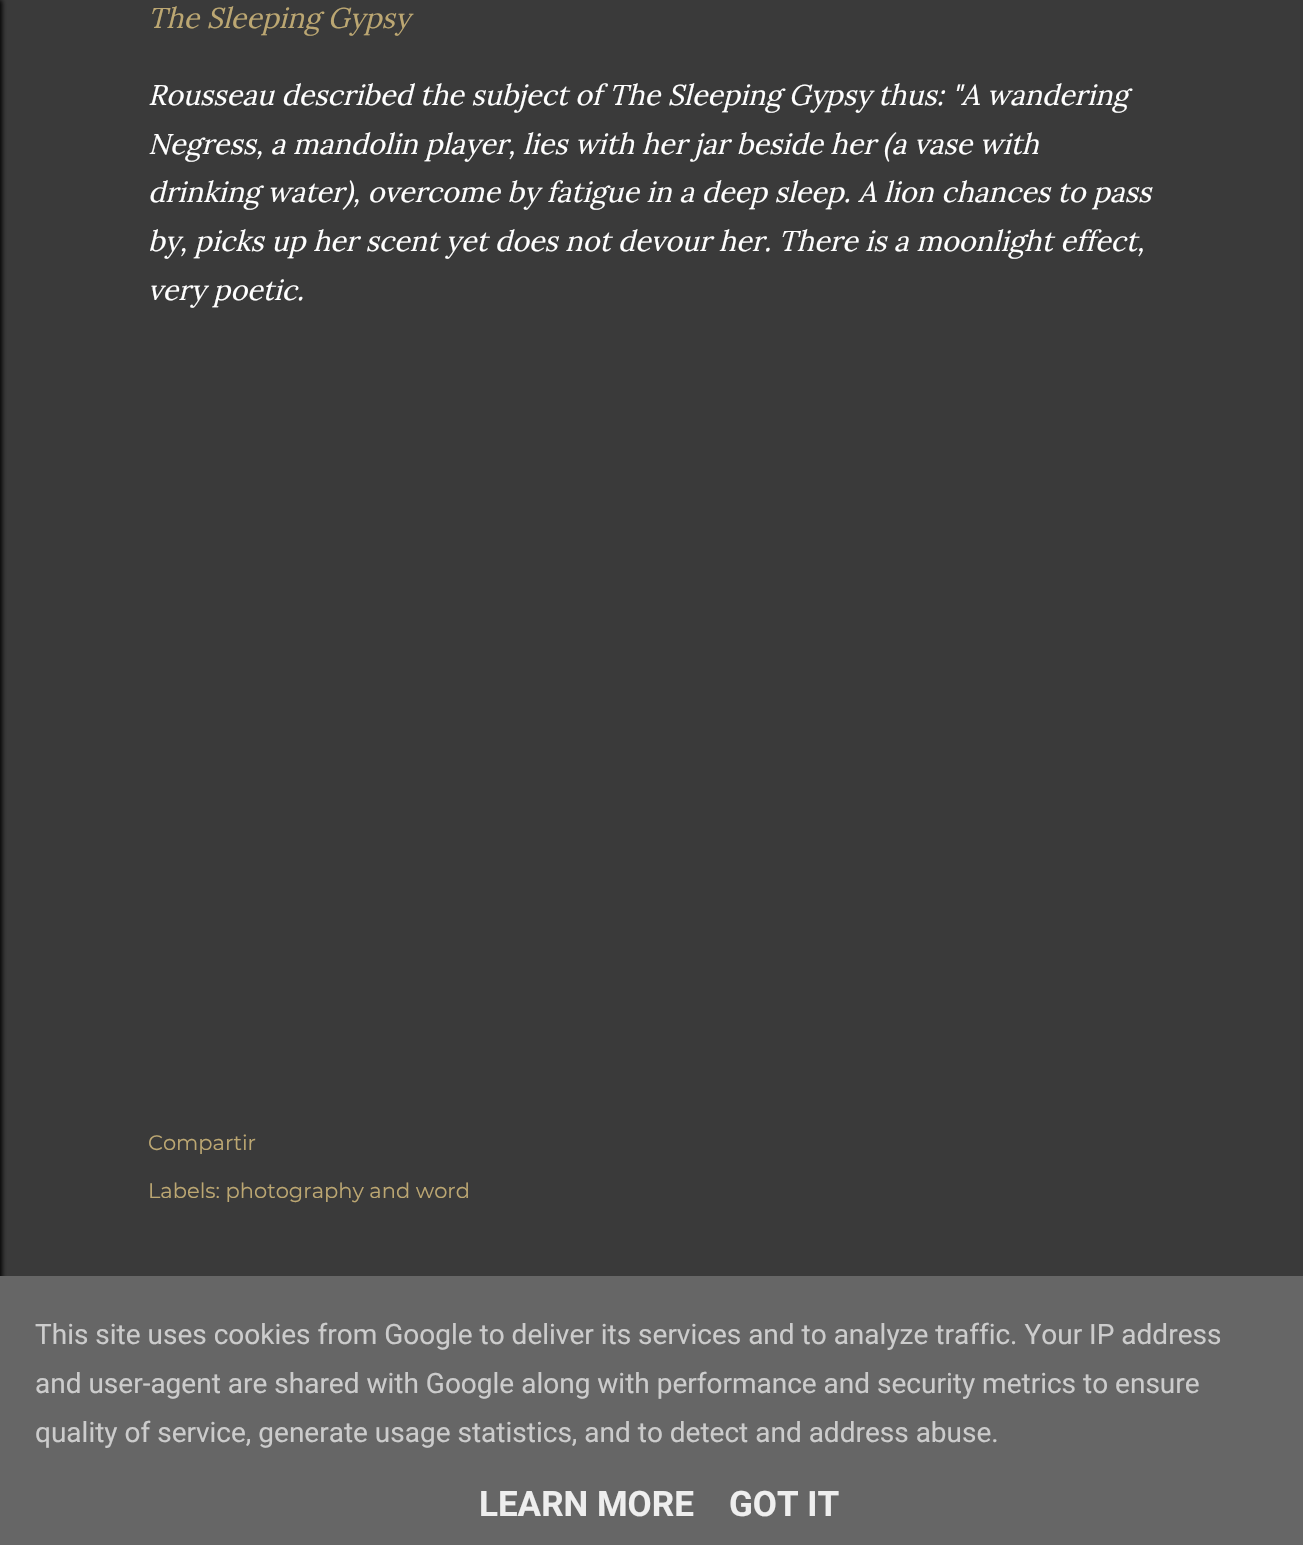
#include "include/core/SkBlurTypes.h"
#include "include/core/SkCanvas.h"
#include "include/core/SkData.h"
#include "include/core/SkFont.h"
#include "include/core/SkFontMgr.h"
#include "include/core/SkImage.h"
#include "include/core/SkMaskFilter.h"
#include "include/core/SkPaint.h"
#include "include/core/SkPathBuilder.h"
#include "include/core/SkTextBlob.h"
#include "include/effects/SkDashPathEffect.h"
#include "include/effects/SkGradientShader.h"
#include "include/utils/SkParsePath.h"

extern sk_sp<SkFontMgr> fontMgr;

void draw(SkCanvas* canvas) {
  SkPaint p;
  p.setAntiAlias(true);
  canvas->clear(SkColorSetRGB(58, 58, 58));
  p.setColor(SK_ColorBLACK);
  p.setMaskFilter(SkMaskFilter::MakeBlur(kNormal_SkBlurStyle, 2.5f));
  canvas->drawRect(SkRect::MakeLTRB(-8, 0, 2, 1545), p);
  p.setMaskFilter(nullptr);
  p.setColor(SkColorSetRGB(102, 102, 102));
  canvas->drawRect(SkRect::MakeLTRB(0, 1276, 1303, 1545), p);
  SkFont font1(fontMgr->matchFamilyStyle("Lora", SkFontStyle::Italic()), 28.65f);
  font1.setSubpixel(true);
  p.setColor(SkColorSetRGB(188, 167, 114));
  canvas->drawString("The Sleeping Gypsy", 148, 28, font1, p);
  p.setColor(SK_ColorWHITE);
  canvas->drawString("Rousseau described the subject of The Sleeping Gypsy", 148, 105, font1, p);
  canvas->drawString("thus: \"A wandering", 878, 105, font1, p);
  canvas->drawString("Negress, a mandolin player, lies with her jar beside her (a vase with", 148, 154, font1, p);
  canvas->drawString("drinking water), overcome by fatigue in a deep sleep. A lion chances to pass", 148, 202, font1, p);
  canvas->drawString("by, picks up her scent yet does not devour her. There is a moonlight effect,", 148, 251, font1, p);
  canvas->drawString("very poetic.", 148, 300, font1, p);
  SkFont font2(fontMgr->matchFamilyStyle("Montserrat", SkFontStyle::Normal()), 21);
  font2.setSubpixel(true);
  p.setColor(SkColorSetRGB(188, 167, 114));
  canvas->drawString("Compartir", 148, 1150, font2, p);
  canvas->drawString("Labels: photography and word", 148, 1198, font2, p);
  SkFont font3(fontMgr->matchFamilyStyle("Roboto", SkFontStyle::Normal()), 28);
  font3.setSubpixel(true);
  p.setColor(SkColorSetRGB(204, 204, 204));
  canvas->drawString("This site uses cookies from Google to deliver its services and to analyze traffic. Your IP address", 35, 1344, font3, p);
  canvas->drawString("and user-agent are shared with Google along with performance and security metrics to ensure", 35, 1393, font3, p);
  canvas->drawString("quality of service, generate usage statistics, and to detect and address abuse.", 35, 1442, font3, p);
  SkFont font4(fontMgr->matchFamilyStyle("Roboto", SkFontStyle::Bold()), 35);
  font4.setSubpixel(true);
  p.setColor(SkColorSetRGB(238, 238, 238));
  canvas->drawString("LEARN MORE", 479, 1516, font4, p);
  canvas->drawString("GOT IT", 729, 1516, font4, p);
}
